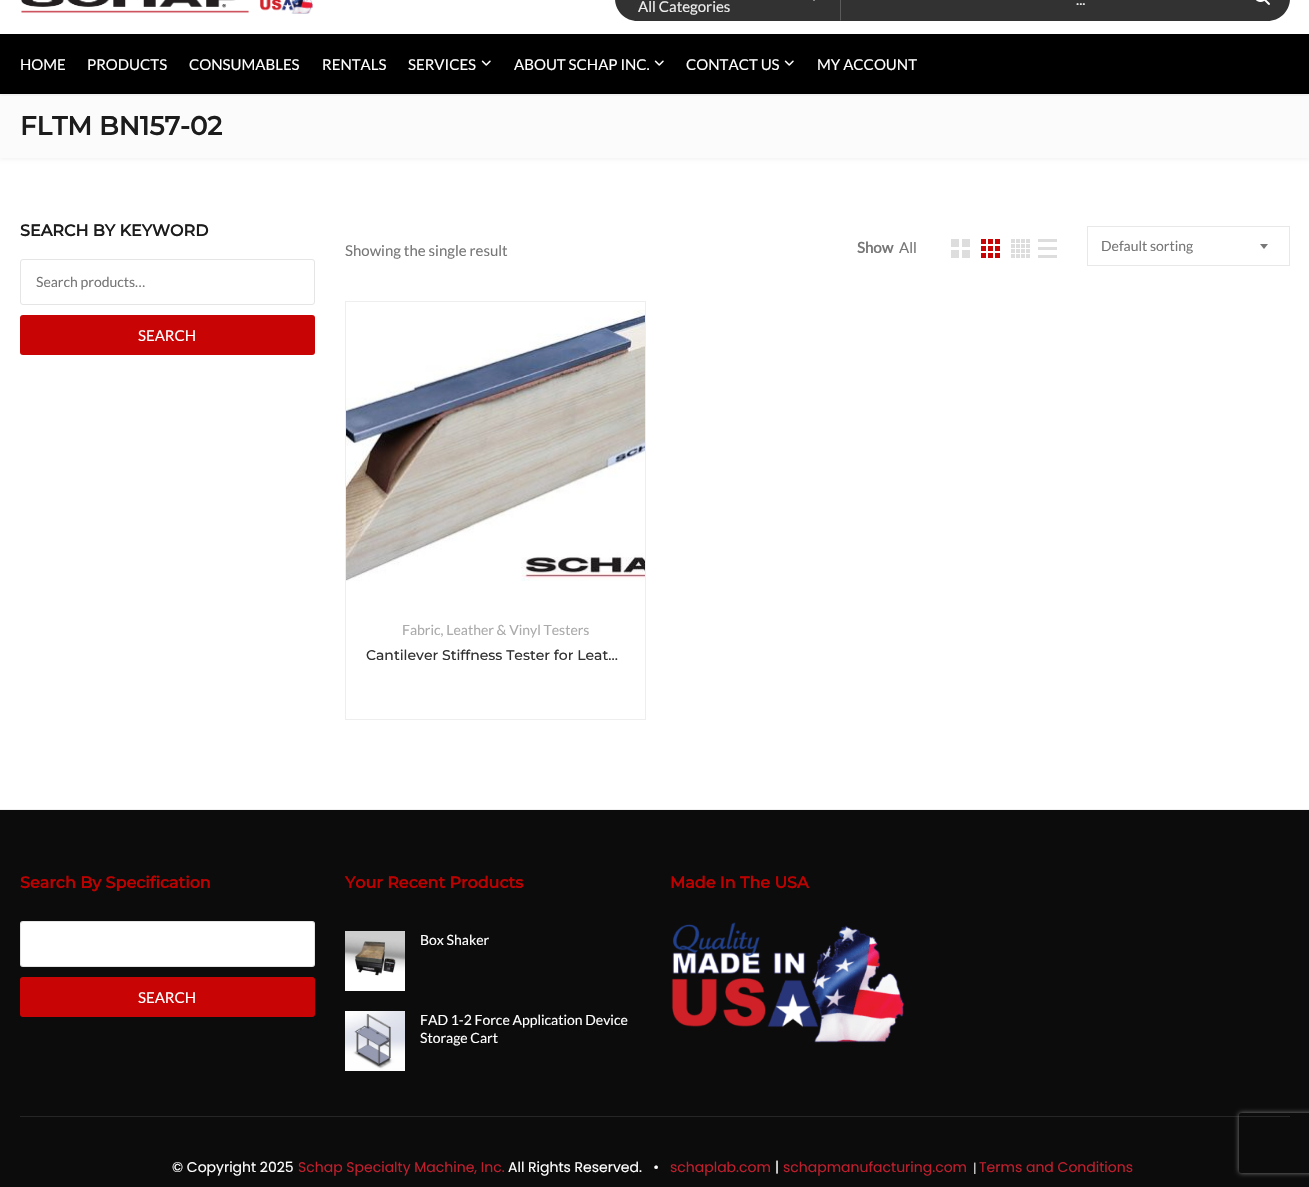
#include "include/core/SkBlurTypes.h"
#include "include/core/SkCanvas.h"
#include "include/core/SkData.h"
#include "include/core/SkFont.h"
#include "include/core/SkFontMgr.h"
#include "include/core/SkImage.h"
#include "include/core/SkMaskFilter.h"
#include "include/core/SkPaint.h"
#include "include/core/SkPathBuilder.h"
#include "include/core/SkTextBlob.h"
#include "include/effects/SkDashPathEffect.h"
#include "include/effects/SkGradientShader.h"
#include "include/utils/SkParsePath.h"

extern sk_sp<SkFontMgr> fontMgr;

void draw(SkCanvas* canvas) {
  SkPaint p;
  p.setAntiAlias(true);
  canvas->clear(SK_ColorWHITE);
  p.setColor(SkColorSetARGB(10, 0, 0, 0));
  p.setMaskFilter(SkMaskFilter::MakeBlur(kNormal_SkBlurStyle, 1.5f));
  canvas->drawRect(SkRect::MakeLTRB(0, 96, 1309, 160), p);
  p.setMaskFilter(nullptr);
  p.setColor(SkColorSetRGB(251, 251, 251));
  canvas->drawRect(SkRect::MakeLTRB(0, 94, 1309, 158), p);
  canvas->save();
  canvas->clipRect(SkRect::MakeLTRB(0, 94, 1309, 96));
  p.setColor(SkColorSetARGB(13, 0, 0, 0));
  p.setMaskFilter(SkMaskFilter::MakeBlur(kNormal_SkBlurStyle, 1.5f));
  canvas->drawRect(SkRect::MakeLTRB(0, -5, 1309, 96), p);
  p.setMaskFilter(nullptr);
  canvas->restore();
  canvas->drawImageRect(SkImages::DeferredFromEncodedData(SkData::MakeFromFileName("images/1.png")), SkRect::MakeLTRB(21, 0, 314, 14), SkSamplingOptions());
  p.setColor(SkColorSetRGB(50, 50, 50));
  canvas->drawPath(SkPathBuilder().moveTo(637.5f, -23).lineTo(840, -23).lineTo(840, 21).lineTo(637.5f, 21).cubicTo(625, 21, 615, 11, 615, -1.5f).lineTo(615, -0.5f).cubicTo(615, -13, 625, -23, 637.5f, -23).close().detach(), p);
  p.setColor(SK_ColorWHITE);
  canvas->drawPath(SkPathBuilder().moveTo(810, -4).lineTo(818, -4).lineTo(814, 1).close().detach(), p);
  p.setColor(SkColorSetRGB(50, 50, 50));
  canvas->drawPath(SkPathBuilder().moveTo(840, -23).lineTo(1267.5f, -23).cubicTo(1280, -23, 1290, -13, 1290, -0.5f).lineTo(1290, -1.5f).cubicTo(1290, 11, 1280, 21, 1267.5f, 21).lineTo(840, 21).close().detach(), p);
  p.setColor(SkColorSetRGB(91, 91, 91));
  canvas->drawPath(SkPathBuilder().moveTo(840, -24).lineTo(840, 21).lineTo(841, 20).lineTo(841, -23).close().detach(), p);
  canvas->drawImageRect(SkImages::DeferredFromEncodedData(SkData::MakeFromFileName("images/2.png")), SkRect::MakeLTRB(1256, 0, 1270, 5), SkSamplingOptions());
  p.setColor(SK_ColorBLACK);
  canvas->drawRect(SkRect::MakeLTRB(0, 34, 1309, 94), p);
  canvas->drawImageRect(SkImages::DeferredFromEncodedData(SkData::MakeFromFileName("images/3.png")), SkRect::MakeLTRB(481, 60, 491, 66), SkSamplingOptions());
  canvas->drawImageRect(SkImages::DeferredFromEncodedData(SkData::MakeFromFileName("images/3.png")), SkRect::MakeLTRB(654, 60, 664, 66), SkSamplingOptions());
  canvas->drawImageRect(SkImages::DeferredFromEncodedData(SkData::MakeFromFileName("images/3.png")), SkRect::MakeLTRB(784, 60, 794, 66), SkSamplingOptions());
  p.setStyle(SkPaint::kStroke_Style);
  p.setStrokeWidth(1);
  p.setColor(SkColorSetRGB(229, 229, 229));
  canvas->drawRoundRect(SkRect::MakeLTRB(20.5f, 259.5f, 314.5f, 304.5f), 2.5f, 2.5f, p);
  p.setStyle(SkPaint::kFill_Style);
  p.setColor(SkColorSetRGB(201, 4, 4));
  canvas->drawRoundRect(SkRect::MakeLTRB(20, 315, 315, 355), 3, 3, p);
  canvas->drawImageRect(SkImages::DeferredFromEncodedData(SkData::MakeFromFileName("images/4.png")), SkRect::MakeLTRB(951, 239, 970, 258), SkSamplingOptions());
  canvas->drawImageRect(SkImages::DeferredFromEncodedData(SkData::MakeFromFileName("images/5.png")), SkRect::MakeLTRB(981, 239, 1000, 258), SkSamplingOptions());
  canvas->drawImageRect(SkImages::DeferredFromEncodedData(SkData::MakeFromFileName("images/6.png")), SkRect::MakeLTRB(1011, 239, 1030, 258), SkSamplingOptions());
  canvas->drawImageRect(SkImages::DeferredFromEncodedData(SkData::MakeFromFileName("images/7.png")), SkRect::MakeLTRB(1038, 239, 1057, 258), SkSamplingOptions());
  p.setStyle(SkPaint::kStroke_Style);
  p.setColor(SkColorSetRGB(232, 232, 232));
  canvas->drawRect(SkRect::MakeLTRB(1087.5f, 226.5f, 1289.5f, 265.5f), p);
  p.setStyle(SkPaint::kFill_Style);
  p.setColor(SkColorSetRGB(119, 119, 119));
  canvas->drawPath(SkPathBuilder().moveTo(1260, 244).lineTo(1268, 244).lineTo(1264, 249).close().detach(), p);
  p.setStyle(SkPaint::kStroke_Style);
  p.setColor(SkColorSetRGB(238, 238, 238));
  canvas->drawRect(SkRect::MakeLTRB(345.5f, 301.5f, 645.5f, 719.5f), p);
  canvas->drawImageRect(SkImages::DeferredFromEncodedData(SkData::MakeFromFileName("images/8.png")), SkRect::MakeLTRB(346, 310, 645, 581), SkSamplingOptions());
  p.setStyle(SkPaint::kFill_Style);
  p.setColor(SkColorSetRGB(240, 240, 240));
  canvas->drawRect(SkRect::MakeLTRB(0, 809, 1309, 810), p);
  p.setColor(SkColorSetRGB(12, 12, 12));
  canvas->drawRect(SkRect::MakeLTRB(0, 810, 1309, 1187), p);
  p.setColor(SK_ColorWHITE);
  canvas->drawRoundRect(SkRect::MakeLTRB(20, 921, 315, 967), 3, 3, p);
  p.setStyle(SkPaint::kStroke_Style);
  p.setColor(SkColorSetARGB(26, 0, 0, 0));
  canvas->drawRoundRect(SkRect::MakeLTRB(20.5f, 921.5f, 314.5f, 966.5f), 2.5f, 2.5f, p);
  p.setStyle(SkPaint::kFill_Style);
  p.setColor(SkColorSetRGB(201, 4, 4));
  canvas->drawRoundRect(SkRect::MakeLTRB(20, 977, 315, 1017), 3, 3, p);
  canvas->drawImageRect(SkImages::DeferredFromEncodedData(SkData::MakeFromFileName("images/9.png")), SkRect::MakeLTRB(345, 931, 405, 991), SkSamplingOptions());
  canvas->drawImageRect(SkImages::DeferredFromEncodedData(SkData::MakeFromFileName("images/10.png")), SkRect::MakeLTRB(345, 1011, 405, 1071), SkSamplingOptions());
  canvas->drawImageRect(SkImages::DeferredFromEncodedData(SkData::MakeFromFileName("images/11.png")), SkRect::MakeLTRB(671, 922, 905, 1043), SkSamplingOptions());
  p.setColor(SkColorSetRGB(38, 38, 38));
  canvas->drawRect(SkRect::MakeLTRB(20, 1116, 1290, 1117), p);
  canvas->save();
  canvas->clipPath(SkPathBuilder(SkPathFillType::kEvenOdd).moveTo(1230, 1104).lineTo(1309, 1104).lineTo(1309, 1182).lineTo(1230, 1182).close().moveTo(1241, 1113).lineTo(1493, 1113).cubicTo(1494, 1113, 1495, 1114, 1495, 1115).lineTo(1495, 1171).cubicTo(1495, 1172, 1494, 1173, 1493, 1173).lineTo(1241, 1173).cubicTo(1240, 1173, 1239, 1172, 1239, 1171).lineTo(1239, 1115).cubicTo(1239, 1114, 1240, 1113, 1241, 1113).close().detach(), true);
  p.setColor(SkColorSetRGB(128, 128, 128));
  p.setMaskFilter(SkMaskFilter::MakeBlur(kNormal_SkBlurStyle, 2.5f));
  canvas->drawRoundRect(SkRect::MakeLTRB(1239, 1113, 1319, 1173), 2, 2, p);
  p.setMaskFilter(nullptr);
  canvas->restore();
  SkFont font1(fontMgr->matchFamilyStyle("Lato", SkFontStyle::Normal()), 15);
  font1.setSubpixel(true);
  p.setColor(SkColorSetRGB(238, 238, 238));
  canvas->drawString("All Categories", 638, 12, font1, p);
  canvas->drawString("...", 1076, 5, font1, p);
  p.setColor(SK_ColorWHITE);
  canvas->drawString("HOME", 20, 70, font1, p);
  canvas->drawString("PRODUCTS", 87, 70, font1, p);
  canvas->drawString("CONSUMABLES", 189, 70, font1, p);
  canvas->drawString("RENTALS", 322, 70, font1, p);
  canvas->drawString("SERVICES", 408, 70, font1, p);
  canvas->drawString("ABOUT SCHAP INC.", 514, 70, font1, p);
  canvas->drawString("CONTACT US", 686, 70, font1, p);
  canvas->drawString("MY ACCOUNT", 817, 70, font1, p);
  SkFont font2(fontMgr->matchFamilyStyle("Montserrat", SkFontStyle::Bold()), 26);
  font2.setSubpixel(true);
  p.setColor(SkColorSetRGB(28, 28, 28));
  canvas->drawString("FLTM BN157-02", 20, 135, font2, p);
  SkFont font3(fontMgr->matchFamilyStyle("Montserrat", SkFontStyle::Bold()), 16);
  font3.setSubpixel(true);
  canvas->drawString("SEARCH BY KEYWORD", 20, 236, font3, p);
  SkFont font4(fontMgr->matchFamilyStyle("Lato", SkFontStyle::Normal()), 14);
  font4.setSubpixel(true);
  p.setColor(SkColorSetRGB(119, 119, 119));
  canvas->drawString("Search products…", 36, 287, font4, p);
  p.setColor(SK_ColorWHITE);
  canvas->drawString("SEARCH", 138, 341, font1, p);
  p.setColor(SkColorSetRGB(119, 119, 119));
  canvas->drawString("Showing the single result", 345, 256, font1, p);
  SkFont font5(fontMgr->matchFamilyStyle("Lato", SkFontStyle::Bold()), 15);
  font5.setSubpixel(true);
  canvas->drawString("Show", 857, 253, font5, p);
  canvas->drawString("All", 899, 253, font1, p);
  canvas->drawString("Default sorting", 1101, 251, font4, p);
  p.setColor(SkColorSetRGB(171, 171, 171));
  canvas->drawString("Fabric, Leather & Vinyl Testers", 402, 635, font4, p);
  SkFont font6(fontMgr->matchFamilyStyle("Montserrat", SkFontStyle(100, SkFontStyle::kNormal_Width, SkFontStyle::kUpright_Slant)), 14);
  font6.setSubpixel(true);
  p.setColor(SkColorSetRGB(50, 50, 50));
  canvas->drawString("Cantilever Stiffness Tester for Leat…", 366, 660, font6, p);
  p.setColor(SkColorSetRGB(188, 1, 1));
  canvas->drawString("Search By Specification", 20, 888, font3, p);
  p.setColor(SK_ColorWHITE);
  canvas->drawString("SEARCH", 138, 1003, font1, p);
  p.setColor(SkColorSetRGB(188, 1, 1));
  canvas->drawString("Your Recent Products", 345, 888, font3, p);
  p.setColor(SK_ColorWHITE);
  canvas->drawString("Box Shaker", 420, 945, font4, p);
  canvas->drawString("FAD 1-2 Force Application Device", 420, 1025, font4, p);
  canvas->drawString("Storage Cart", 420, 1043, font4, p);
  p.setColor(SkColorSetRGB(188, 1, 1));
  canvas->drawString("Made In The USA", 670, 888, font3, p);
  SkFont font7(fontMgr->matchFamilyStyle("Poppins", SkFontStyle::Normal()), 14);
  font7.setSubpixel(true);
  p.setColor(SK_ColorWHITE);
  canvas->drawString("© Copyright 2025", 172, 1172, font7, p);
  p.setColor(SkColorSetRGB(190, 30, 45));
  canvas->drawString("Schap Specialty Machine, Inc.", 298, 1172, font7, p);
  p.setColor(SK_ColorWHITE);
  canvas->drawString("All Rights Reserved.   •", 508, 1172, font7, p);
  p.setColor(SkColorSetRGB(190, 30, 45));
  canvas->drawString("schaplab.com", 670, 1172, font7, p);
  p.setColor(SK_ColorWHITE);
  canvas->drawString("|", 775, 1172, font7, p);
  p.setColor(SkColorSetRGB(190, 30, 45));
  canvas->drawString("schapmanufacturing.com", 783, 1172, font7, p);
  SkFont font8(fontMgr->matchFamilyStyle("Lato", SkFontStyle::Normal()), 12);
  font8.setSubpixel(true);
  p.setColor(SK_ColorWHITE);
  canvas->drawString("|", 973, 1172, font8, p);
  p.setColor(SkColorSetRGB(190, 30, 45));
  canvas->drawString("Terms and Conditions", 979, 1172, font7, p);
}
